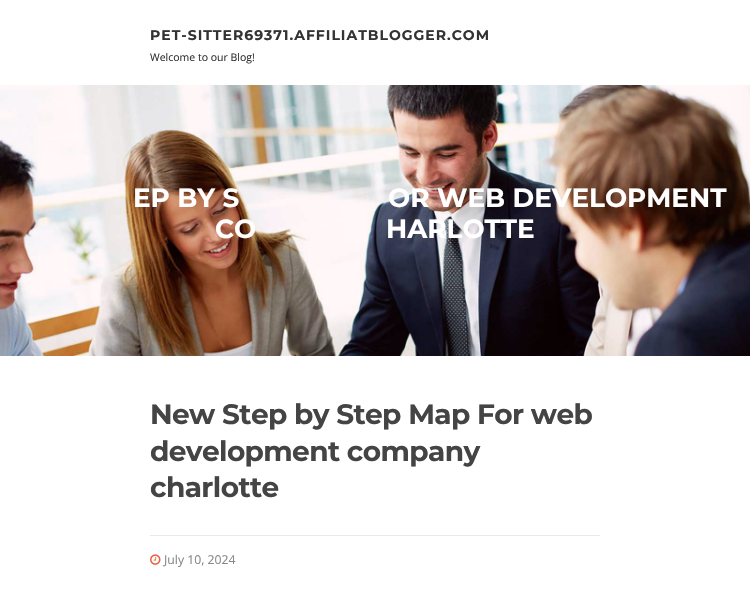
#include "include/core/SkBlurTypes.h"
#include "include/core/SkCanvas.h"
#include "include/core/SkData.h"
#include "include/core/SkFont.h"
#include "include/core/SkFontMgr.h"
#include "include/core/SkImage.h"
#include "include/core/SkMaskFilter.h"
#include "include/core/SkPaint.h"
#include "include/core/SkPathBuilder.h"
#include "include/core/SkTextBlob.h"
#include "include/effects/SkDashPathEffect.h"
#include "include/effects/SkGradientShader.h"
#include "include/utils/SkParsePath.h"

extern sk_sp<SkFontMgr> fontMgr;

void draw(SkCanvas* canvas) {
  SkPaint p;
  p.setAntiAlias(true);
  auto spacedText = [&](const char* s, float x, float y, const SkFont& font, const SkPaint& ink, float letter, float word) {
    std::vector<SkGlyphID> glyphs(font.countText(s, strlen(s), SkTextEncoding::kUTF8));
    std::vector<float> xs(glyphs.size());
    font.textToGlyphs(s, strlen(s), SkTextEncoding::kUTF8, glyphs);
    font.getXPos(glyphs, xs, x);
    float extra = 0;
    for (size_t i = 0; i < glyphs.size(); i++) {
      xs[i] += extra;
      extra += letter + word * (glyphs[i] == font.unicharToGlyph(' '));
    }
    canvas->drawTextBlob(SkTextBlob::MakeFromPosHGlyphs(glyphs, xs, y, font), 0, 0, ink);
  };
  canvas->clear(SK_ColorWHITE);
  canvas->drawImageRect(SkImages::DeferredFromEncodedData(SkData::MakeFromFileName("images/1.png")), SkRect::MakeLTRB(0, 85, 750, 356), SkSamplingOptions());
  p.setColor(SkColorSetRGB(233, 233, 233));
  canvas->drawRect(SkRect::MakeLTRB(150, 535, 600, 536), p);
  canvas->drawImageRect(SkImages::DeferredFromEncodedData(SkData::MakeFromFileName("images/2.png")), SkRect::MakeLTRB(150, 554, 161, 565), SkSamplingOptions());
  SkFont font1(fontMgr->matchFamilyStyle("Montserrat", SkFontStyle::Bold()), 14);
  font1.setSubpixel(true);
  p.setColor(SkColorSetRGB(51, 51, 51));
  spacedText("PET-SITTER69371.AFFILIATBLOGGER.COM", 150, 40, font1, p, 1, 0);
  SkFont font2(fontMgr->matchFamilyStyle("Open Sans", SkFontStyle::Normal()), 10.5f);
  font2.setSubpixel(true);
  canvas->drawString("Welcome to our Blog!", 150, 61, font2, p);
  SkFont font3(fontMgr->matchFamilyStyle("Montserrat", SkFontStyle::Bold()), 26.25f);
  font3.setSubpixel(true);
  p.setColor(SK_ColorWHITE);
  canvas->drawString("EP BY S", 133, 207, font3, p);
  canvas->drawString("OR WEB DEVELOPMENT", 388, 207, font3, p);
  canvas->drawString("CO", 215, 238, font3, p);
  canvas->drawString("HARLOTTE", 386, 238, font3, p);
  SkFont font4(fontMgr->matchFamilyStyle("Montserrat", SkFontStyle::Bold()), 28);
  font4.setSubpixel(true);
  p.setColor(SkColorSetRGB(68, 68, 68));
  spacedText("New Step by Step Map For web", 150, 424, font4, p, -0.6f, 0);
  spacedText("development company", 150, 461, font4, p, -0.6f, 0);
  spacedText("charlotte", 150, 497, font4, p, -0.6f, 0);
  SkFont font5(fontMgr->matchFamilyStyle("Open Sans", SkFontStyle::Normal()), 12.25f);
  font5.setSubpixel(true);
  p.setColor(SkColorSetRGB(136, 136, 136));
  canvas->drawString("July 10, 2024", 164, 564, font5, p);
}
